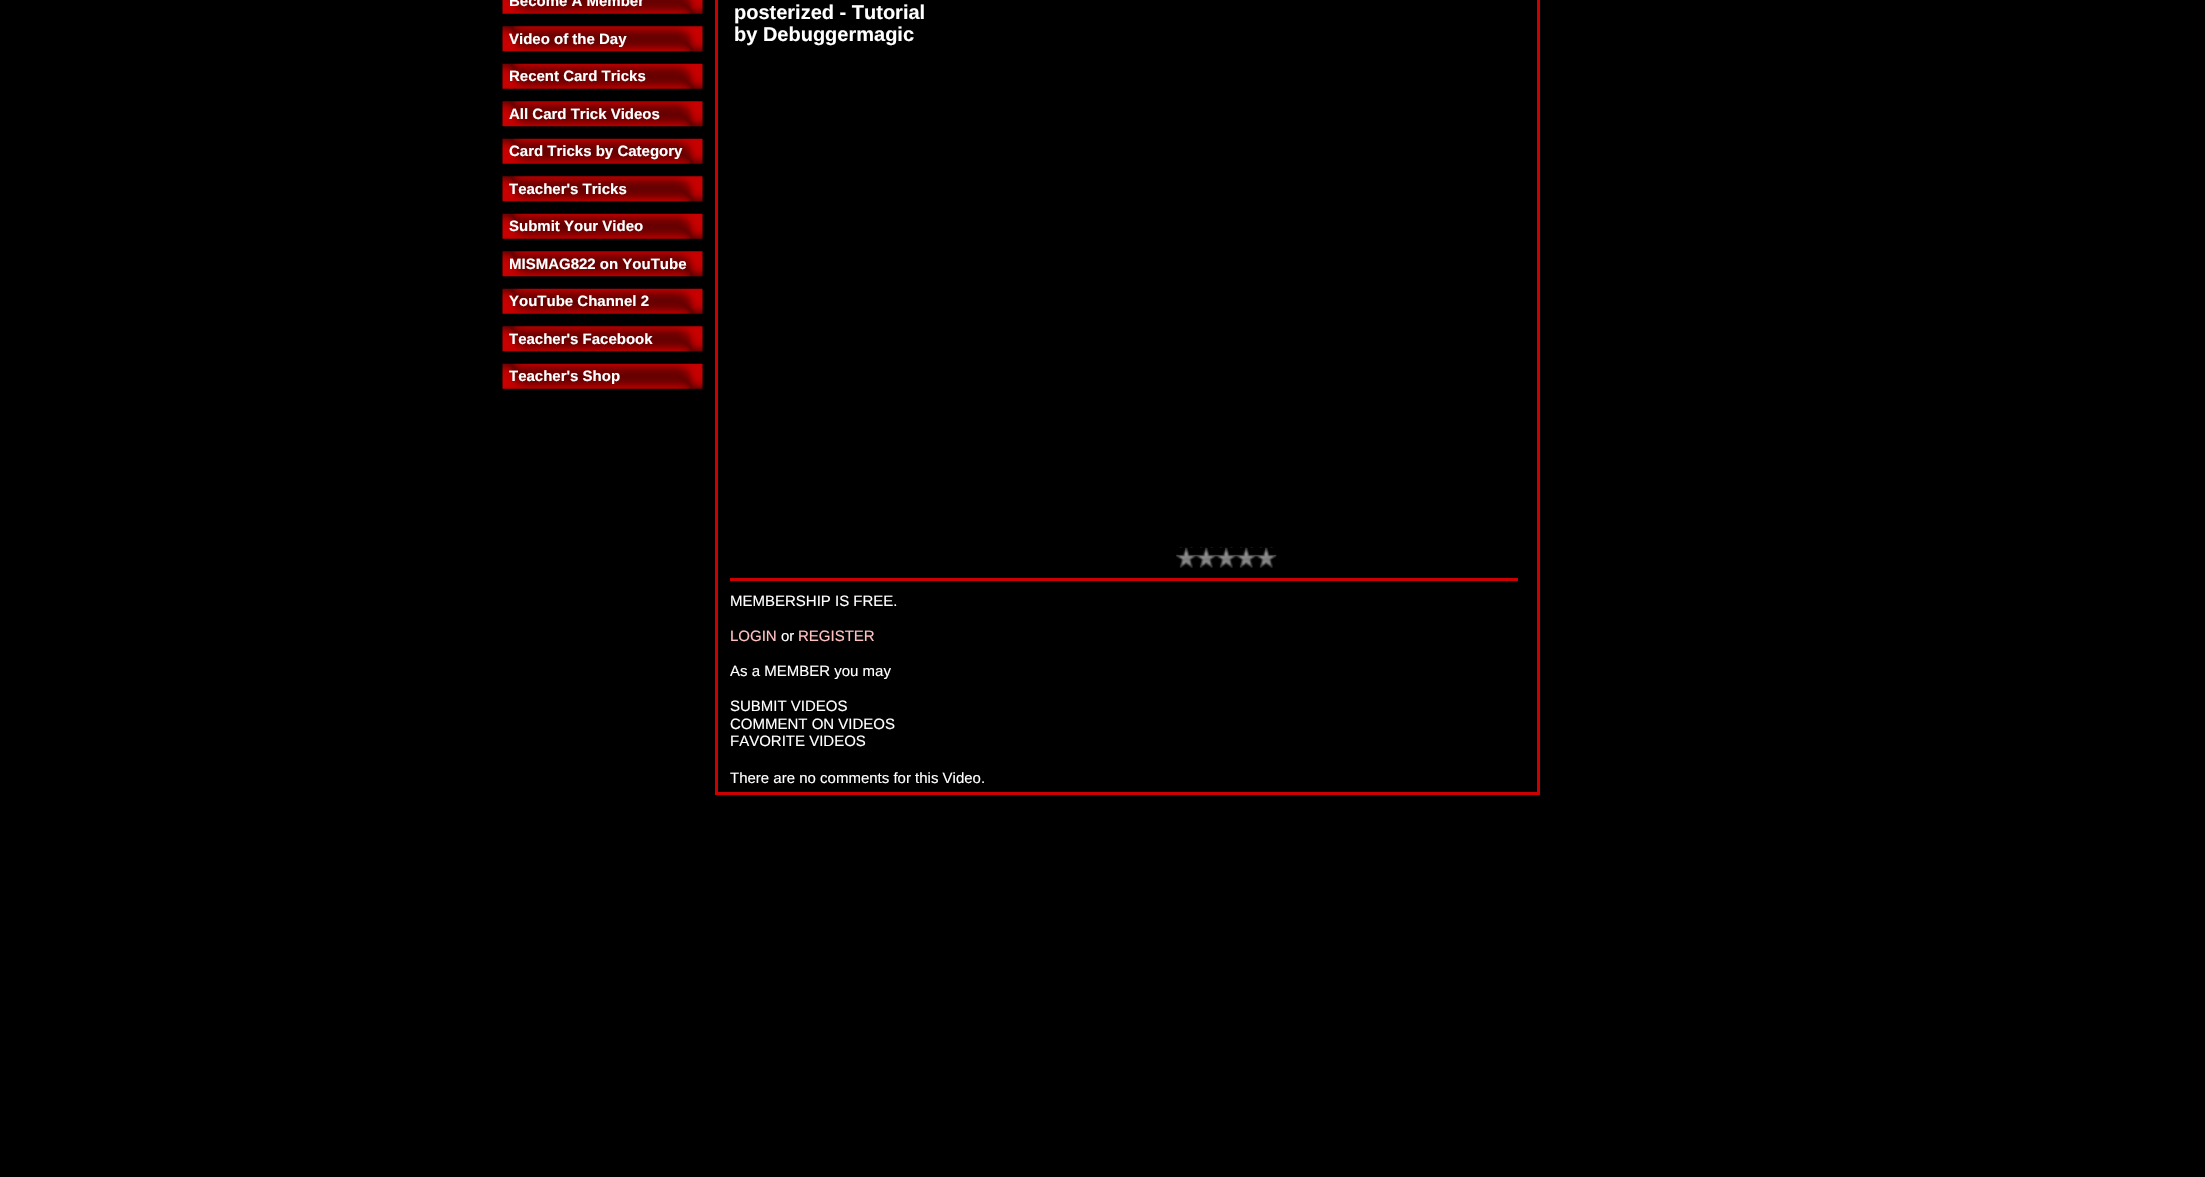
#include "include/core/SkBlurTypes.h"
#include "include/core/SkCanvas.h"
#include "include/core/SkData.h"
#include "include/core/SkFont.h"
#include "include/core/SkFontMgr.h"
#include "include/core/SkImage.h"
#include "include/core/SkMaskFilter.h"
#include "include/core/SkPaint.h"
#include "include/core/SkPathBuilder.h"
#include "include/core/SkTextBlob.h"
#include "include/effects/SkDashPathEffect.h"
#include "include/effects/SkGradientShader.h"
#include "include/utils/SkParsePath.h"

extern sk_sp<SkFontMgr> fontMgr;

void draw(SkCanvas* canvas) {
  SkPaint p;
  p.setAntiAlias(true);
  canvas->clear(SK_ColorBLACK);
  canvas->drawImageRect(SkImages::DeferredFromEncodedData(SkData::MakeFromFileName("images/1.png")), SkRect::MakeLTRB(502, 0, 703, 14), SkSamplingOptions());
  canvas->drawImageRect(SkImages::DeferredFromEncodedData(SkData::MakeFromFileName("images/2.png")), SkRect::MakeLTRB(502, 26, 703, 52), SkSamplingOptions());
  canvas->drawImageRect(SkImages::DeferredFromEncodedData(SkData::MakeFromFileName("images/3.png")), SkRect::MakeLTRB(502, 63, 703, 89), SkSamplingOptions());
  canvas->drawImageRect(SkImages::DeferredFromEncodedData(SkData::MakeFromFileName("images/4.png")), SkRect::MakeLTRB(502, 101, 703, 127), SkSamplingOptions());
  canvas->drawImageRect(SkImages::DeferredFromEncodedData(SkData::MakeFromFileName("images/3.png")), SkRect::MakeLTRB(502, 138, 703, 164), SkSamplingOptions());
  canvas->drawImageRect(SkImages::DeferredFromEncodedData(SkData::MakeFromFileName("images/4.png")), SkRect::MakeLTRB(502, 176, 703, 202), SkSamplingOptions());
  canvas->drawImageRect(SkImages::DeferredFromEncodedData(SkData::MakeFromFileName("images/3.png")), SkRect::MakeLTRB(502, 213, 703, 239), SkSamplingOptions());
  canvas->drawImageRect(SkImages::DeferredFromEncodedData(SkData::MakeFromFileName("images/4.png")), SkRect::MakeLTRB(502, 251, 703, 277), SkSamplingOptions());
  canvas->drawImageRect(SkImages::DeferredFromEncodedData(SkData::MakeFromFileName("images/3.png")), SkRect::MakeLTRB(502, 288, 703, 314), SkSamplingOptions());
  canvas->drawImageRect(SkImages::DeferredFromEncodedData(SkData::MakeFromFileName("images/4.png")), SkRect::MakeLTRB(502, 326, 703, 352), SkSamplingOptions());
  canvas->drawImageRect(SkImages::DeferredFromEncodedData(SkData::MakeFromFileName("images/3.png")), SkRect::MakeLTRB(502, 363, 703, 389), SkSamplingOptions());
  p.setStyle(SkPaint::kStroke_Style);
  p.setStrokeWidth(3);
  p.setColor(SkColorSetRGB(204, 0, 0));
  canvas->drawRect(SkRect::MakeLTRB(716.5f, -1.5f, 1538.5f, 793.5f), p);
  canvas->drawImageRect(SkImages::DeferredFromEncodedData(SkData::MakeFromFileName("images/5.png")), SkRect::MakeLTRB(1176, 547, 1277, 568), SkSamplingOptions());
  p.setStyle(SkPaint::kFill_Style);
  canvas->drawRect(SkRect::MakeLTRB(730, 578, 1518, 581), p);
  SkFont font1(fontMgr->matchFamilyStyle("Liberation Sans", SkFontStyle::Bold()), 15);
  font1.setSubpixel(true);
  p.setColor(SK_ColorWHITE);
  canvas->drawString("Become A Member", 509, 6, font1, p);
  canvas->drawString("Video of the Day", 509, 44, font1, p);
  canvas->drawString("Recent Card Tricks", 509, 81, font1, p);
  canvas->drawString("All Card Trick Videos", 509, 119, font1, p);
  canvas->drawString("Card Tricks by Category", 509, 156, font1, p);
  canvas->drawString("Teacher's Tricks", 509, 194, font1, p);
  canvas->drawString("Submit Your Video", 509, 231, font1, p);
  canvas->drawString("MISMAG822 on YouTube", 509, 269, font1, p);
  canvas->drawString("YouTube Channel 2", 509, 306, font1, p);
  canvas->drawString("Teacher's Facebook", 509, 344, font1, p);
  canvas->drawString("Teacher's Shop", 509, 381, font1, p);
  SkFont font2(fontMgr->matchFamilyStyle("Liberation Sans", SkFontStyle::Bold()), 20);
  font2.setSubpixel(true);
  canvas->drawString("posterized - Tutorial", 734, 19, font2, p);
  canvas->drawString("by Debuggermagic", 734, 41, font2, p);
  SkFont font3(fontMgr->matchFamilyStyle("Liberation Sans", SkFontStyle::Normal()), 15);
  font3.setSubpixel(true);
  canvas->drawString("MEMBERSHIP IS FREE.", 730, 606, font3, p);
  p.setColor(SkColorSetRGB(255, 192, 192));
  canvas->drawString("LOGIN", 730, 641, font3, p);
  p.setColor(SK_ColorWHITE);
  canvas->drawString("or", 781, 641, font3, p);
  p.setColor(SkColorSetRGB(255, 192, 192));
  canvas->drawString("REGISTER", 798, 641, font3, p);
  p.setColor(SK_ColorWHITE);
  canvas->drawString("As a MEMBER you may", 730, 676, font3, p);
  canvas->drawString("SUBMIT VIDEOS", 730, 711, font3, p);
  canvas->drawString("COMMENT ON VIDEOS", 730, 729, font3, p);
  canvas->drawString("FAVORITE VIDEOS", 730, 746, font3, p);
  canvas->drawString("There are no comments for this Video.", 730, 783, font3, p);
}
